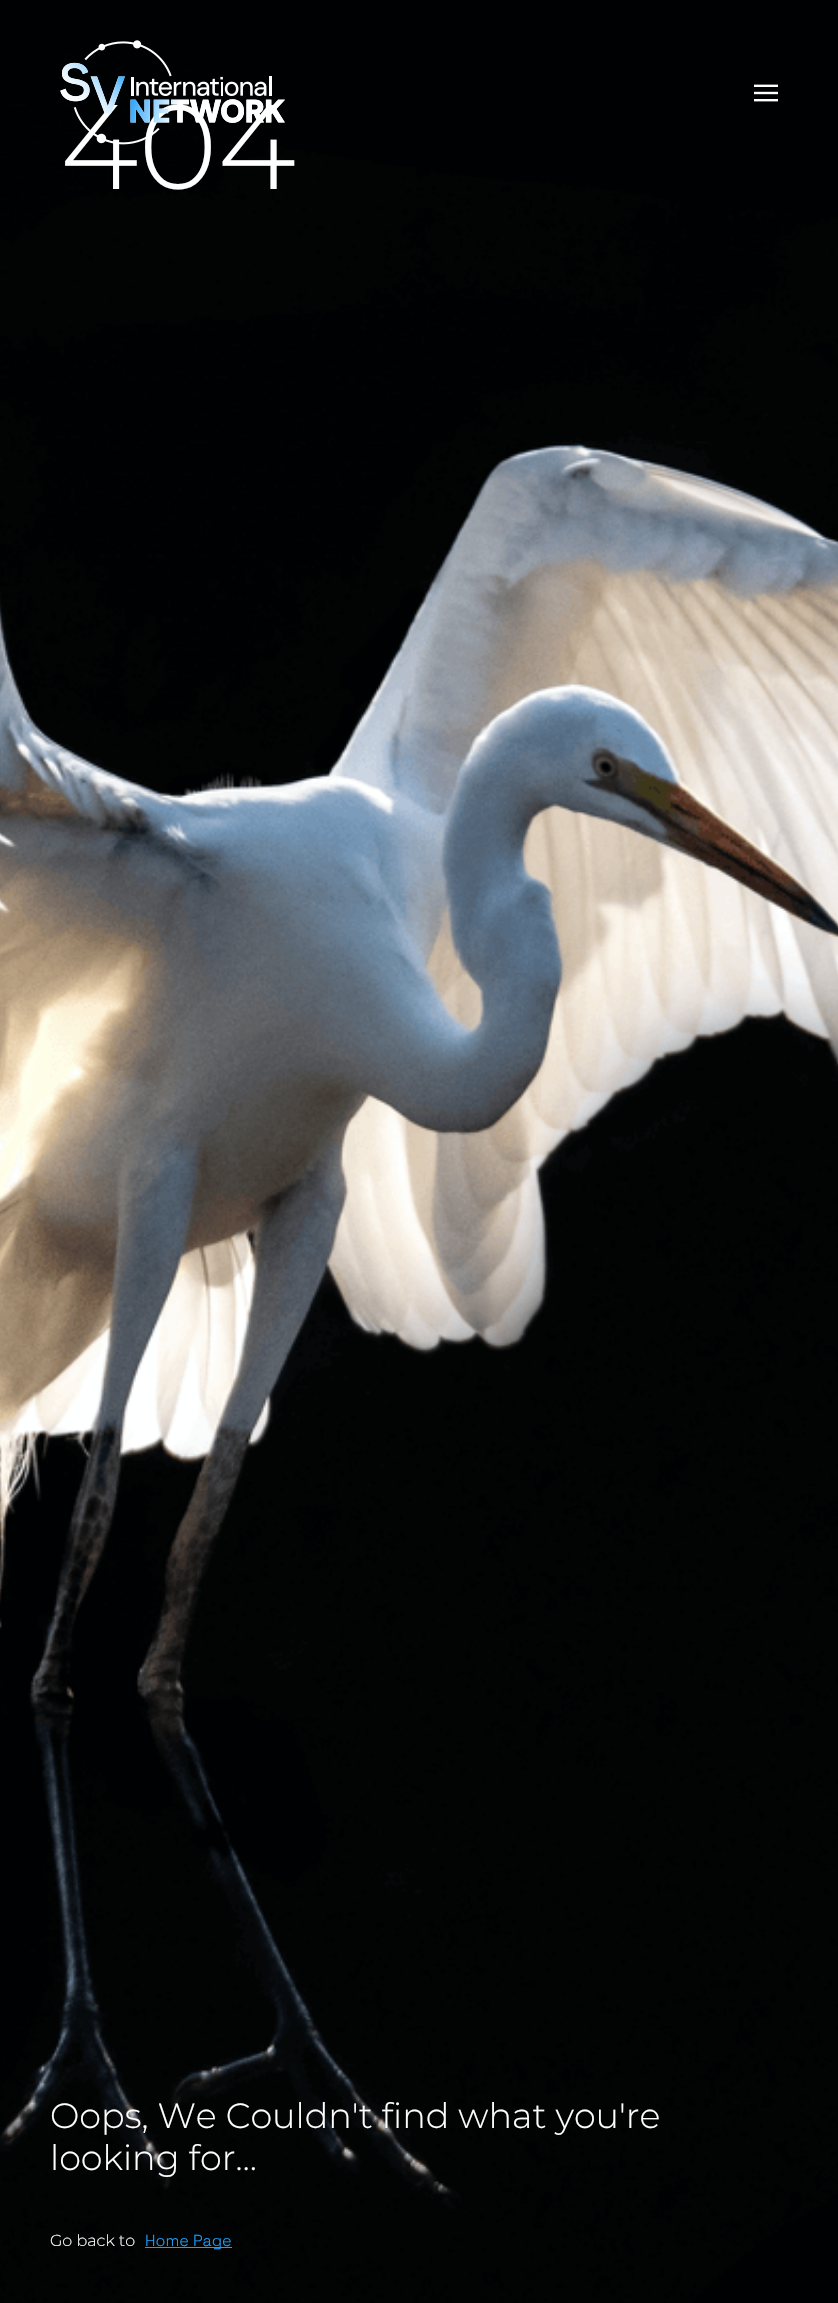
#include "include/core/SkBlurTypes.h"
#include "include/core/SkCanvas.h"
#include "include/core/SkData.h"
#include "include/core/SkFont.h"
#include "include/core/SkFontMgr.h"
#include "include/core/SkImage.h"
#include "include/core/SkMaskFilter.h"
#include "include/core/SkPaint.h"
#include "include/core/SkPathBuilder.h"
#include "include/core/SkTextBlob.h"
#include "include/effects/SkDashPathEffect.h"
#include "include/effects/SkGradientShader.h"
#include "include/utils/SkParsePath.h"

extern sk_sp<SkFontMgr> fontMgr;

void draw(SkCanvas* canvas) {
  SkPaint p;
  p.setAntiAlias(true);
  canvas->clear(SK_ColorWHITE);
  canvas->drawImageRect(SkImages::DeferredFromEncodedData(SkData::MakeFromFileName("images/3.png")), SkRect::MakeLTRB(0, 0, 838, 2303), SkSamplingOptions());
  canvas->drawImageRect(SkImages::DeferredFromEncodedData(SkData::MakeFromFileName("images/2.png")), SkRect::MakeLTRB(754, 84, 778, 102), SkSamplingOptions());
  p.setColor(SkColorSetRGB(26, 160, 255));
  canvas->drawRect(SkRect::MakeLTRB(145, 2247, 232, 2248), p);
  SkFont font1(fontMgr->matchFamilyStyle("Montserrat", SkFontStyle(300, SkFontStyle::kNormal_Width, SkFontStyle::kUpright_Slant)), 120);
  font1.setSubpixel(true);
  p.setColor(SK_ColorWHITE);
  canvas->drawString("404", 60, 189, font1, p);
  canvas->drawImageRect(SkImages::DeferredFromEncodedData(SkData::MakeFromFileName("images/1.png")), SkRect::MakeLTRB(60, 40, 285, 145), SkSamplingOptions());
  SkFont font2(fontMgr->matchFamilyStyle("Montserrat", SkFontStyle(300, SkFontStyle::kNormal_Width, SkFontStyle::kUpright_Slant)), 35);
  font2.setSubpixel(true);
  canvas->drawString("Oops, We Couldn't find what you're", 50, 2128, font2, p);
  canvas->drawString("looking for…", 50, 2170, font2, p);
  SkFont font3(fontMgr->matchFamilyStyle("Montserrat", SkFontStyle(300, SkFontStyle::kNormal_Width, SkFontStyle::kUpright_Slant)), 16);
  font3.setSubpixel(true);
  canvas->drawString("Go back to", 50, 2246, font3, p);
  SkFont font4(fontMgr->matchFamilyStyle("Space Grotesk", SkFontStyle(300, SkFontStyle::kNormal_Width, SkFontStyle::kUpright_Slant)), 16);
  font4.setSubpixel(true);
  p.setColor(SkColorSetRGB(26, 160, 255));
  canvas->drawString("Home Page", 145, 2246, font4, p);
}
